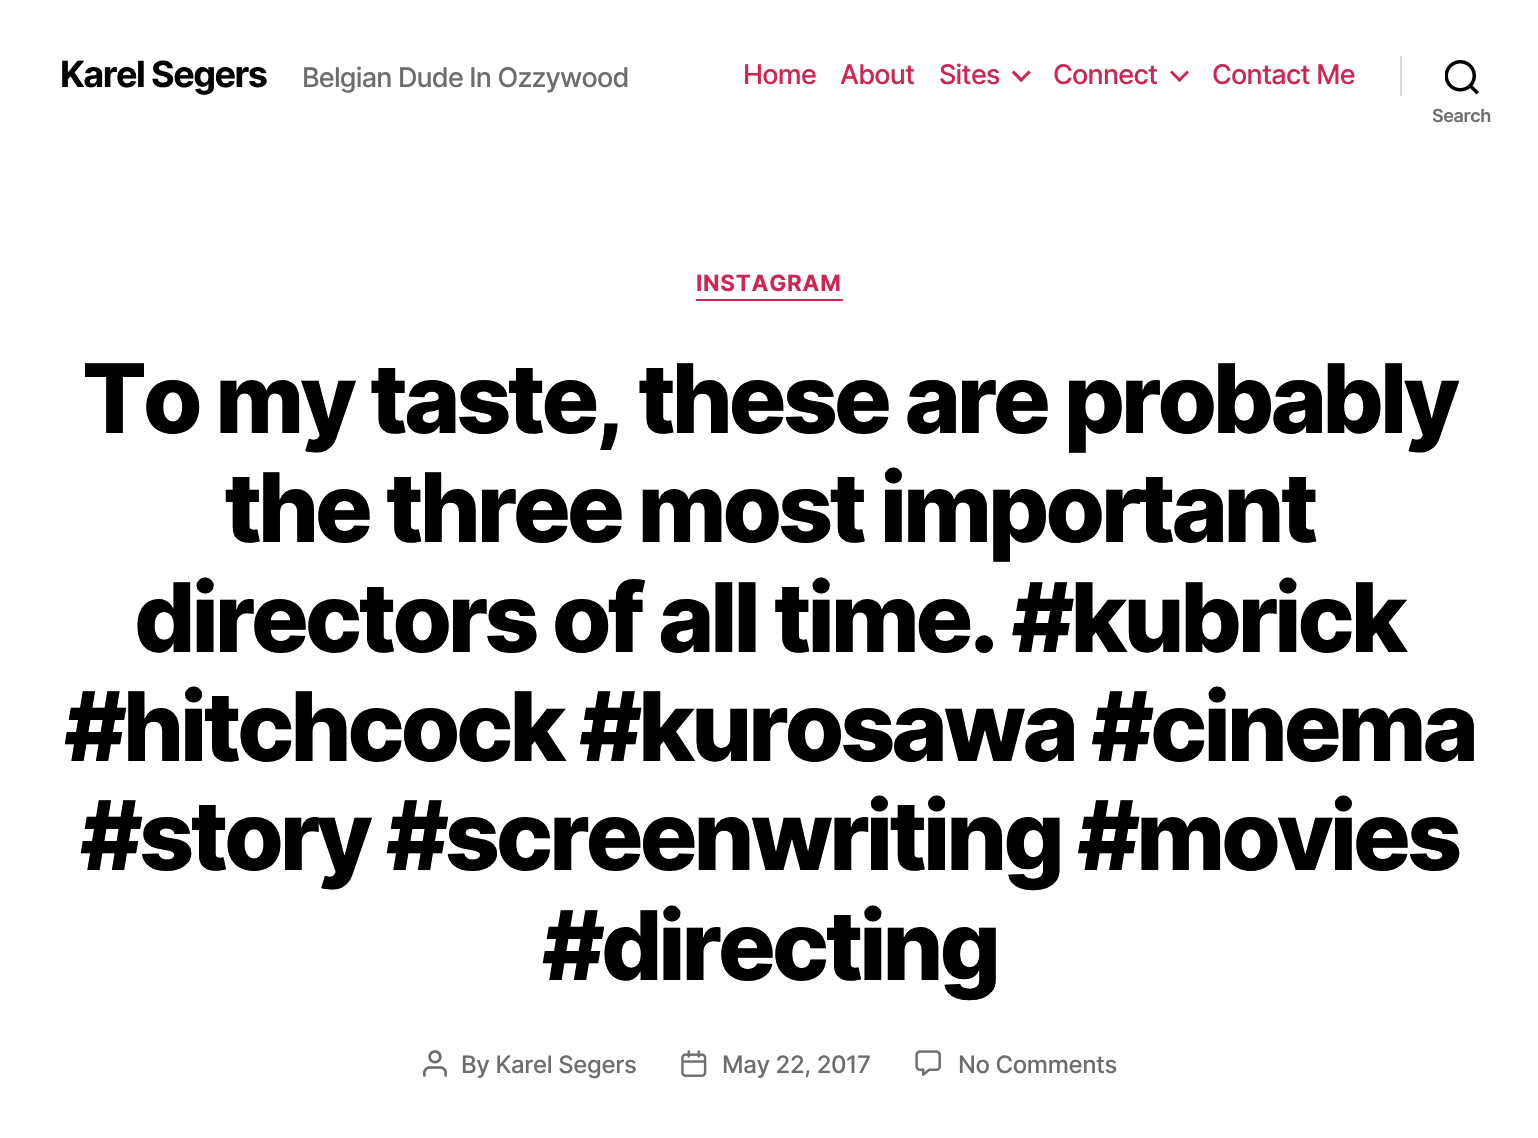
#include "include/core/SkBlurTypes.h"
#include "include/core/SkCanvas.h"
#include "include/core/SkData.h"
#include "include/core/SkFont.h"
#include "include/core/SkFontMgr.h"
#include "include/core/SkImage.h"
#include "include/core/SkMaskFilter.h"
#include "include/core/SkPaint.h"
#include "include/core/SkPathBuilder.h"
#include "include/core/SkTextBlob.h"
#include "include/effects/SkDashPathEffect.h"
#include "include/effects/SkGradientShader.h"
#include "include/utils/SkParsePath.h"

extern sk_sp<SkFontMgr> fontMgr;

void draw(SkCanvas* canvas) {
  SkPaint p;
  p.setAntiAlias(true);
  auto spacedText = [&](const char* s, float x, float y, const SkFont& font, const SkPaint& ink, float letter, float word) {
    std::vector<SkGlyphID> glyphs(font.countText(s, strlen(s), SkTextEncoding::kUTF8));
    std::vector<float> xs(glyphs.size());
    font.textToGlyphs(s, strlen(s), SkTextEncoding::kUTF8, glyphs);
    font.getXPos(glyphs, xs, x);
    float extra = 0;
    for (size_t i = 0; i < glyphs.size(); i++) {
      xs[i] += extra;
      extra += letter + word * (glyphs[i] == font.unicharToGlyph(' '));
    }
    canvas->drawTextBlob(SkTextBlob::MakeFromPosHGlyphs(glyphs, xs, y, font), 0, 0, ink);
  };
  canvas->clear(SK_ColorWHITE);
  p.setColor(SkColorSetRGB(205, 38, 83));
  canvas->drawPath(SkPathBuilder().moveTo(1011.5f, 72.5f).lineTo(1014, 70.5f).lineTo(1023.5f, 80).lineTo(1021, 82).close().detach(), p);
  canvas->drawPath(SkPathBuilder().moveTo(1019, 80).lineTo(1028.5f, 70.5f).lineTo(1031, 72.5f).lineTo(1021, 82).close().detach(), p);
  canvas->drawPath(SkPathBuilder().moveTo(1170, 72.5f).lineTo(1172, 70.5f).lineTo(1181.5f, 80).lineTo(1179.5f, 82).close().detach(), p);
  canvas->drawPath(SkPathBuilder().moveTo(1177.5f, 80).lineTo(1187, 70.5f).lineTo(1189, 72.5f).lineTo(1179.5f, 82).close().detach(), p);
  p.setColor(SkColorSetRGB(220, 215, 202));
  canvas->drawRect(SkRect::MakeLTRB(1400, 56, 1402, 96), p);
  canvas->drawImageRect(SkImages::DeferredFromEncodedData(SkData::MakeFromFileName("images/1.png")), SkRect::MakeLTRB(1445, 60, 1479, 95), SkSamplingOptions());
  p.setColor(SkColorSetRGB(205, 38, 83));
  canvas->drawRect(SkRect::MakeLTRB(696, 299, 843, 301), p);
  canvas->drawImageRect(SkImages::DeferredFromEncodedData(SkData::MakeFromFileName("images/2.png")), SkRect::MakeLTRB(423, 1050, 447, 1077), SkSamplingOptions());
  canvas->drawImageRect(SkImages::DeferredFromEncodedData(SkData::MakeFromFileName("images/3.png")), SkRect::MakeLTRB(681, 1050, 707, 1077), SkSamplingOptions());
  canvas->drawImageRect(SkImages::DeferredFromEncodedData(SkData::MakeFromFileName("images/4.png")), SkRect::MakeLTRB(915, 1050, 941, 1076), SkSamplingOptions());
  SkFont font1(fontMgr->matchFamilyStyle("Inter", SkFontStyle::Bold()), 36);
  font1.setSubpixel(true);
  p.setColor(SK_ColorBLACK);
  spacedText("Karel Segers", 60, 87, font1, p, -1.5f, 0);
  SkFont font2(fontMgr->matchFamilyStyle("Inter", SkFontStyle(500, SkFontStyle::kNormal_Width, SkFontStyle::kUpright_Slant)), 27);
  font2.setSubpixel(true);
  p.setColor(SkColorSetRGB(109, 109, 109));
  spacedText("Belgian Dude In Ozzywood", 302, 87, font2, p, -0.8f, 0);
  p.setColor(SkColorSetRGB(205, 38, 83));
  spacedText("Home", 743, 84, font2, p, -0.75f, 0);
  spacedText("About", 840, 84, font2, p, -0.75f, 0);
  spacedText("Sites", 939, 84, font2, p, -0.75f, 0);
  spacedText("Connect", 1053, 84, font2, p, -0.75f, 0);
  spacedText("Contact Me", 1212, 84, font2, p, -0.75f, 0);
  SkFont font3(fontMgr->matchFamilyStyle("Inter", SkFontStyle(600, SkFontStyle::kNormal_Width, SkFontStyle::kUpright_Slant)), 18);
  font3.setSubpixel(true);
  p.setColor(SkColorSetRGB(109, 109, 109));
  spacedText("Search", 1432, 122, font3, p, -0.4f, 0);
  SkFont font4(fontMgr->matchFamilyStyle("Inter", SkFontStyle::Bold()), 22.5f);
  font4.setSubpixel(true);
  p.setColor(SkColorSetRGB(205, 38, 83));
  spacedText("INSTAGRAM", 696, 291, font4, p, 0.75f, 0);
  SkFont font5(fontMgr->matchFamilyStyle("Inter", SkFontStyle(800, SkFontStyle::kNormal_Width, SkFontStyle::kUpright_Slant)), 96);
  font5.setSubpixel(true);
  p.setColor(SK_ColorBLACK);
  spacedText("To my taste, these are probably", 82, 433, font5, p, -4, 0);
  spacedText("the three most important", 224, 542, font5, p, -4, 0);
  spacedText("directors of all time. #kubrick", 134, 652, font5, p, -4, 0);
  spacedText("#hitchcock #kurosawa #cinema", 64, 761, font5, p, -4, 0);
  spacedText("#story #screenwriting #movies", 80, 870, font5, p, -4, 0);
  spacedText("#directing", 542, 980, font5, p, -4, 0);
  SkFont font6(fontMgr->matchFamilyStyle("Inter", SkFontStyle(500, SkFontStyle::kNormal_Width, SkFontStyle::kUpright_Slant)), 24);
  font6.setSubpixel(true);
  p.setColor(SkColorSetRGB(109, 109, 109));
  spacedText("By Karel Segers", 461, 1073, font6, p, -0.4f, 0);
  spacedText("May 22, 2017", 722, 1073, font6, p, -0.4f, 0);
  spacedText("No Comments", 958, 1073, font6, p, -0.4f, 0);
}
